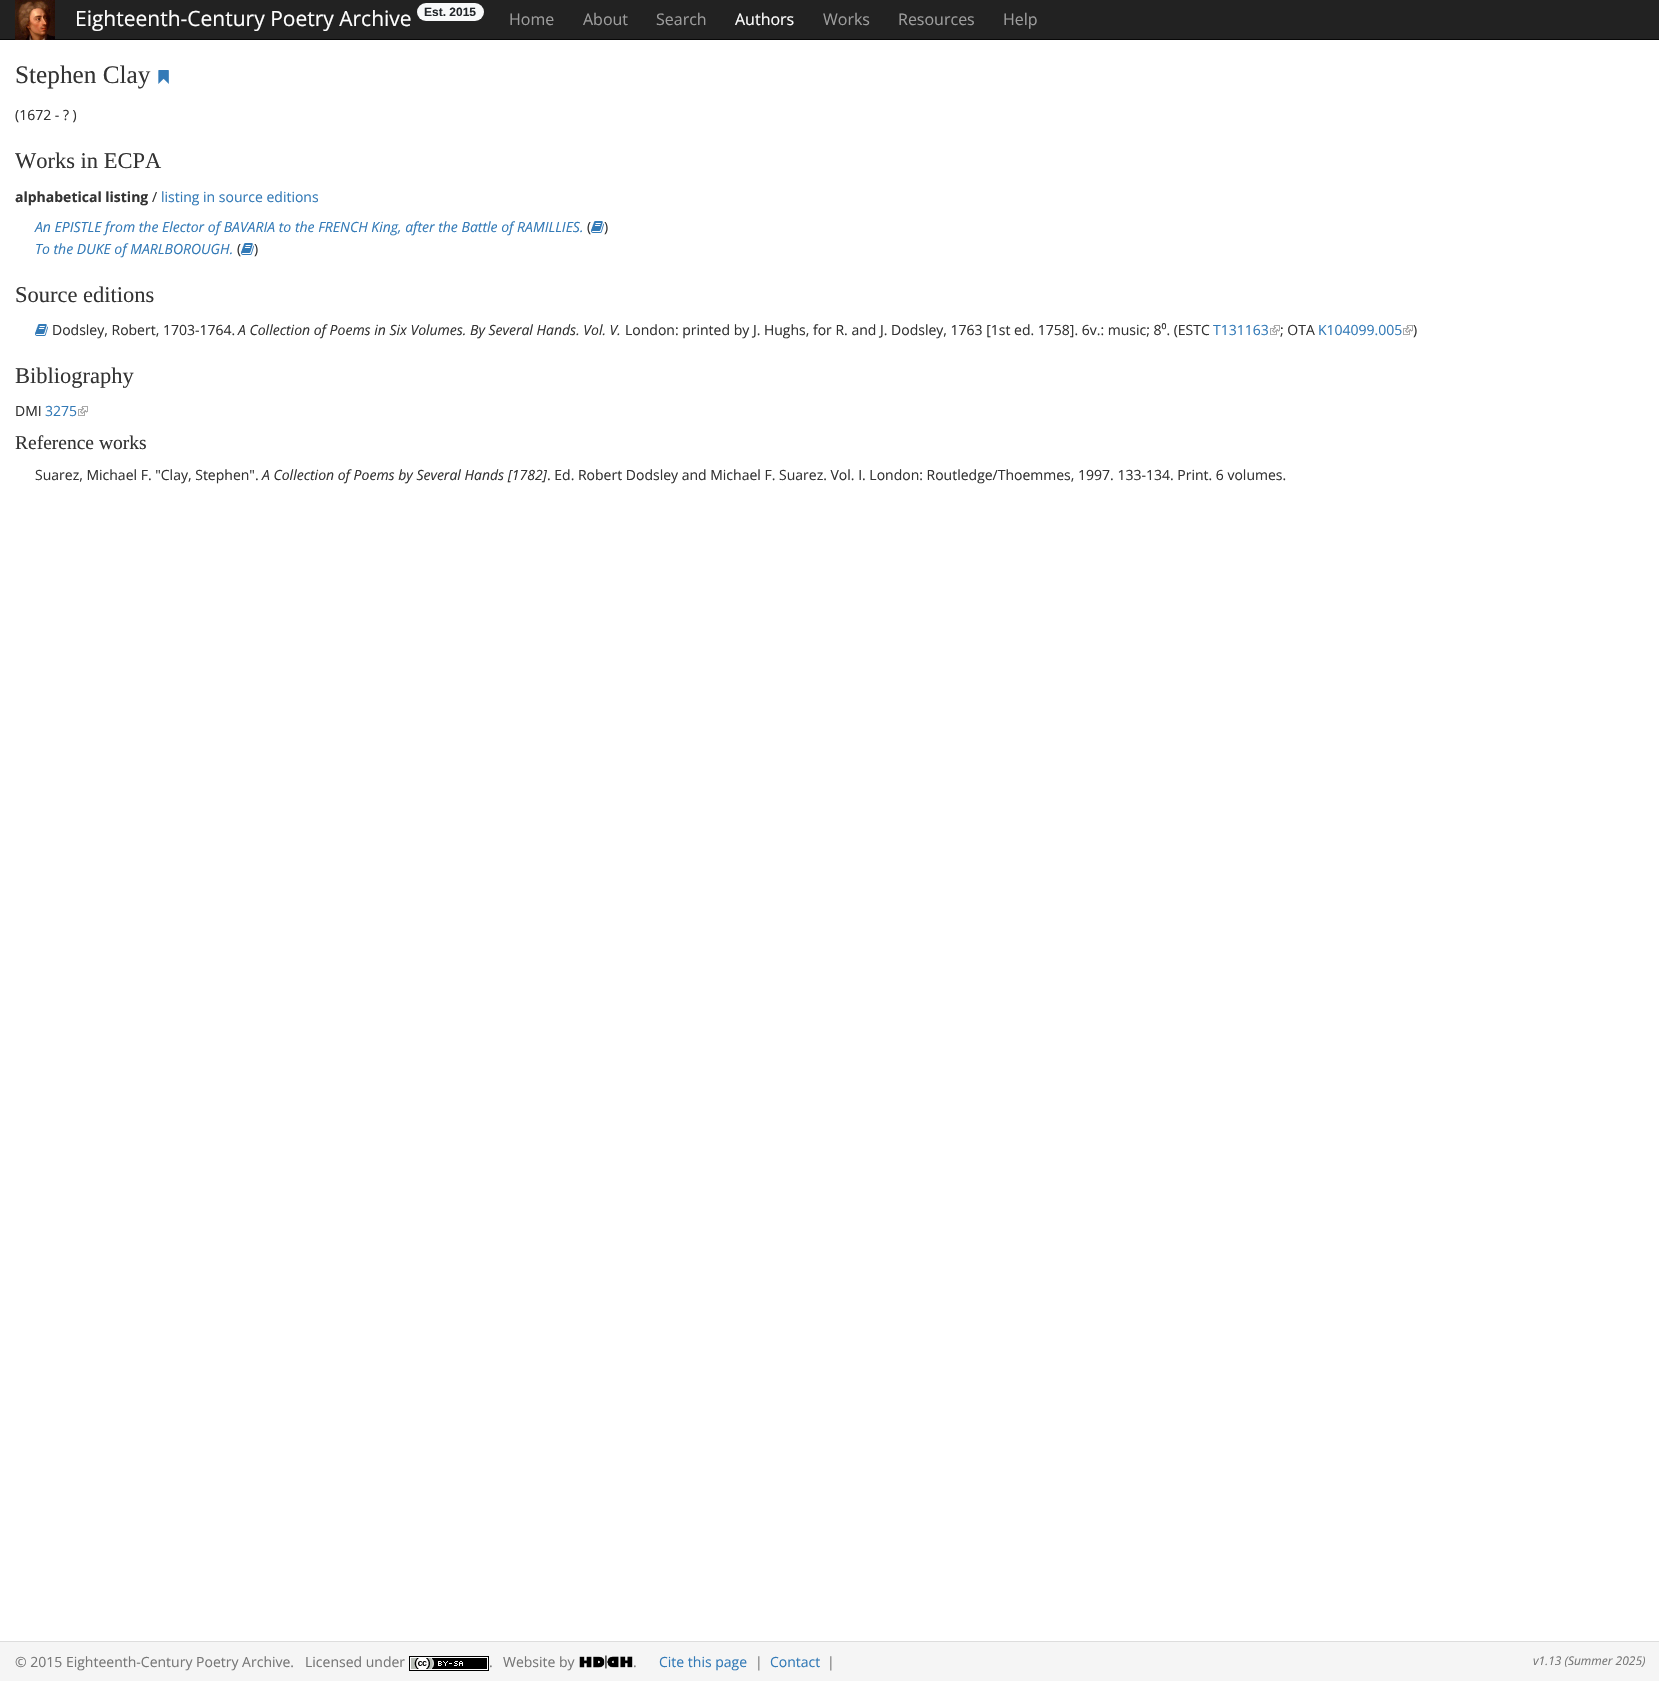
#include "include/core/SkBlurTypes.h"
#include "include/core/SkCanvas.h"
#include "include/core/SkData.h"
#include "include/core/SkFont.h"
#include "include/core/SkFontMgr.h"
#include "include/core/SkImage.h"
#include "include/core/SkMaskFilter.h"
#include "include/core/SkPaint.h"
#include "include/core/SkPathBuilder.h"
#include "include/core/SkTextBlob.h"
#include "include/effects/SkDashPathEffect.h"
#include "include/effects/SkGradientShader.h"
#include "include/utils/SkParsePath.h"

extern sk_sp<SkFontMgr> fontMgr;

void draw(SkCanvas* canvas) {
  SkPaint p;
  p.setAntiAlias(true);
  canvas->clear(SK_ColorWHITE);
  p.setColor(SkColorSetRGB(34, 34, 34));
  canvas->drawRect(SkRect::MakeLTRB(0, 0, 1659, 39), p);
  p.setColor(SkColorSetRGB(8, 8, 8));
  canvas->drawRect(SkRect::MakeLTRB(0, 39, 1659, 40), p);
  canvas->drawImageRect(SkImages::DeferredFromEncodedData(SkData::MakeFromFileName("images/1.png")), SkRect::MakeLTRB(15, 0, 55, 40), SkSamplingOptions());
  p.setColor(SkColorSetRGB(248, 249, 250));
  canvas->drawRoundRect(SkRect::MakeLTRB(417, 3, 484, 21), 9, 9, p);
  canvas->drawImageRect(SkImages::DeferredFromEncodedData(SkData::MakeFromFileName("images/2.png")), SkRect::MakeLTRB(158, 70, 169, 84), SkSamplingOptions());
  canvas->drawImageRect(SkImages::DeferredFromEncodedData(SkData::MakeFromFileName("images/3.png")), SkRect::MakeLTRB(591, 221, 604, 233), SkSamplingOptions());
  canvas->drawImageRect(SkImages::DeferredFromEncodedData(SkData::MakeFromFileName("images/3.png")), SkRect::MakeLTRB(241, 243, 254, 255), SkSamplingOptions());
  canvas->drawImageRect(SkImages::DeferredFromEncodedData(SkData::MakeFromFileName("images/3.png")), SkRect::MakeLTRB(35, 324, 48, 336), SkSamplingOptions());
  canvas->drawImageRect(SkImages::DeferredFromEncodedData(SkData::MakeFromFileName("images/4.png")), SkRect::MakeLTRB(1270, 325, 1280, 335), SkSamplingOptions());
  canvas->drawImageRect(SkImages::DeferredFromEncodedData(SkData::MakeFromFileName("images/4.png")), SkRect::MakeLTRB(1403, 325, 1413, 335), SkSamplingOptions());
  canvas->drawImageRect(SkImages::DeferredFromEncodedData(SkData::MakeFromFileName("images/4.png")), SkRect::MakeLTRB(78, 406, 88, 416), SkSamplingOptions());
  p.setColor(SkColorSetRGB(245, 245, 245));
  canvas->drawRect(SkRect::MakeLTRB(0, 1642, 1659, 1681), p);
  p.setColor(SkColorSetRGB(221, 221, 221));
  canvas->drawRect(SkRect::MakeLTRB(0, 1641, 1659, 1642), p);
  canvas->drawImageRect(SkImages::DeferredFromEncodedData(SkData::MakeFromFileName("images/5.png")), SkRect::MakeLTRB(409, 1656, 489, 1671), SkSamplingOptions());
  canvas->drawImageRect(SkImages::DeferredFromEncodedData(SkData::MakeFromFileName("images/6.png")), SkRect::MakeLTRB(579, 1655, 633, 1669), SkSamplingOptions());
  SkFont font1(fontMgr->matchFamilyStyle("Open Sans", SkFontStyle::Normal()), 21);
  font1.setSubpixel(true);
  p.setColor(SK_ColorWHITE);
  canvas->drawString("Eighteenth-Century Poetry Archive", 75, 26, font1, p);
  SkFont font2(fontMgr->matchFamilyStyle("Liberation Sans", SkFontStyle::Bold()), 12);
  font2.setSubpixel(true);
  p.setColor(SkColorSetRGB(33, 37, 41));
  canvas->drawString("Est. 2015", 424, 16, font2, p);
  SkFont font3(fontMgr->matchFamilyStyle("Open Sans", SkFontStyle::Normal()), 16);
  font3.setSubpixel(true);
  p.setColor(SkColorSetRGB(157, 157, 157));
  canvas->drawString("Home", 509, 25, font3, p);
  canvas->drawString("About", 583, 25, font3, p);
  canvas->drawString("Search", 656, 25, font3, p);
  p.setColor(SK_ColorWHITE);
  canvas->drawString("Authors", 735, 25, font3, p);
  p.setColor(SkColorSetRGB(157, 157, 157));
  canvas->drawString("Works", 823, 25, font3, p);
  canvas->drawString("Resources", 898, 25, font3, p);
  canvas->drawString("Help", 1003, 25, font3, p);
  SkFont font4(fontMgr->matchFamilyStyle("Liberation Serif", SkFontStyle::Normal()), 25.25f);
  font4.setSubpixel(true);
  p.setColor(SkColorSetRGB(51, 51, 51));
  canvas->drawString("Stephen Clay", 15, 83, font4, p);
  SkFont font5(fontMgr->matchFamilyStyle("Open Sans", SkFontStyle::Normal()), 14);
  font5.setSubpixel(true);
  canvas->drawString("(1672 - ? )", 15, 120, font5, p);
  SkFont font6(fontMgr->matchFamilyStyle("Liberation Serif", SkFontStyle::Normal()), 22.5f);
  font6.setSubpixel(true);
  canvas->drawString("Works in ECPA", 15, 168, font6, p);
  SkFont font7(fontMgr->matchFamilyStyle("Open Sans", SkFontStyle::Bold()), 14);
  font7.setSubpixel(true);
  canvas->drawString("alphabetical listing", 15, 202, font7, p);
  canvas->drawString("/", 152, 202, font5, p);
  p.setColor(SkColorSetRGB(51, 122, 183));
  canvas->drawString("listing in source editions", 161, 202, font5, p);
  SkFont font8(fontMgr->matchFamilyStyle("Open Sans", SkFontStyle::Italic()), 14);
  font8.setSubpixel(true);
  canvas->drawString("An EPISTLE from the Elector of BAVARIA to the FRENCH King, after the Battle of RAMILLIES.", 35, 232, font8, p);
  p.setColor(SkColorSetRGB(51, 51, 51));
  canvas->drawString("(", 587, 232, font5, p);
  canvas->drawString(")", 604, 232, font5, p);
  p.setColor(SkColorSetRGB(51, 122, 183));
  canvas->drawString("To the DUKE of MARLBOROUGH.", 35, 254, font8, p);
  p.setColor(SkColorSetRGB(51, 51, 51));
  canvas->drawString("(", 237, 254, font5, p);
  canvas->drawString(")", 254, 254, font5, p);
  canvas->drawString("Source editions", 15, 302, font6, p);
  canvas->drawString("Dodsley, Robert, 1703-1764.", 52, 335, font5, p);
  canvas->drawString("A Collection of Poems in Six Volumes. By Several Hands. Vol. V.", 238, 335, font8, p);
  canvas->drawString("London: printed by J. Hughs, for R. and J. Dodsley, 1763 [1st ed. 1758]. 6v.: music; 8⁰. (ESTC", 625, 335, font5, p);
  p.setColor(SkColorSetRGB(51, 122, 183));
  canvas->drawString("T131163", 1213, 335, font5, p);
  p.setColor(SkColorSetRGB(51, 51, 51));
  canvas->drawString("; OTA", 1280, 335, font5, p);
  p.setColor(SkColorSetRGB(51, 122, 183));
  canvas->drawString("K104099.005", 1318, 335, font5, p);
  p.setColor(SkColorSetRGB(51, 51, 51));
  canvas->drawString(")", 1413, 335, font5, p);
  canvas->drawString("Bibliography", 15, 383, font6, p);
  canvas->drawString("DMI", 15, 416, font5, p);
  p.setColor(SkColorSetRGB(51, 122, 183));
  canvas->drawString("3275", 45, 416, font5, p);
  SkFont font9(fontMgr->matchFamilyStyle("Liberation Serif", SkFontStyle::Normal()), 19.5f);
  font9.setSubpixel(true);
  p.setColor(SkColorSetRGB(51, 51, 51));
  canvas->drawString("Reference works", 15, 449, font9, p);
  canvas->drawString("Suarez, Michael F. \"Clay, Stephen\".", 35, 480, font5, p);
  canvas->drawString("A Collection of Poems by Several Hands [1782]", 262, 480, font8, p);
  canvas->drawString(". Ed. Robert Dodsley and Michael F. Suarez. Vol. I. London: Routledge/Thoemmes, 1997. 133-134. Print. 6 volumes.", 547, 480, font5, p);
  p.setColor(SkColorSetRGB(119, 119, 119));
  canvas->drawString("© 2015 Eighteenth-Century Poetry Archive.", 15, 1667, font5, p);
  canvas->drawString("Licensed under", 305, 1667, font5, p);
  canvas->drawString(".", 489, 1667, font5, p);
  canvas->drawString("Website by", 503, 1667, font5, p);
  canvas->drawString(".", 633, 1667, font5, p);
  p.setColor(SkColorSetRGB(51, 122, 183));
  canvas->drawString("Cite this page", 659, 1667, font5, p);
  p.setColor(SkColorSetRGB(119, 119, 119));
  canvas->drawString("|", 755, 1667, font5, p);
  p.setColor(SkColorSetRGB(51, 122, 183));
  canvas->drawString("Contact", 770, 1667, font5, p);
  p.setColor(SkColorSetRGB(119, 119, 119));
  canvas->drawString("|", 827, 1667, font5, p);
  SkFont font10(fontMgr->matchFamilyStyle("Open Sans", SkFontStyle::Italic()), 12);
  font10.setSubpixel(true);
  canvas->drawString("v1.13 (Summer 2025)", 1533, 1665, font10, p);
}
